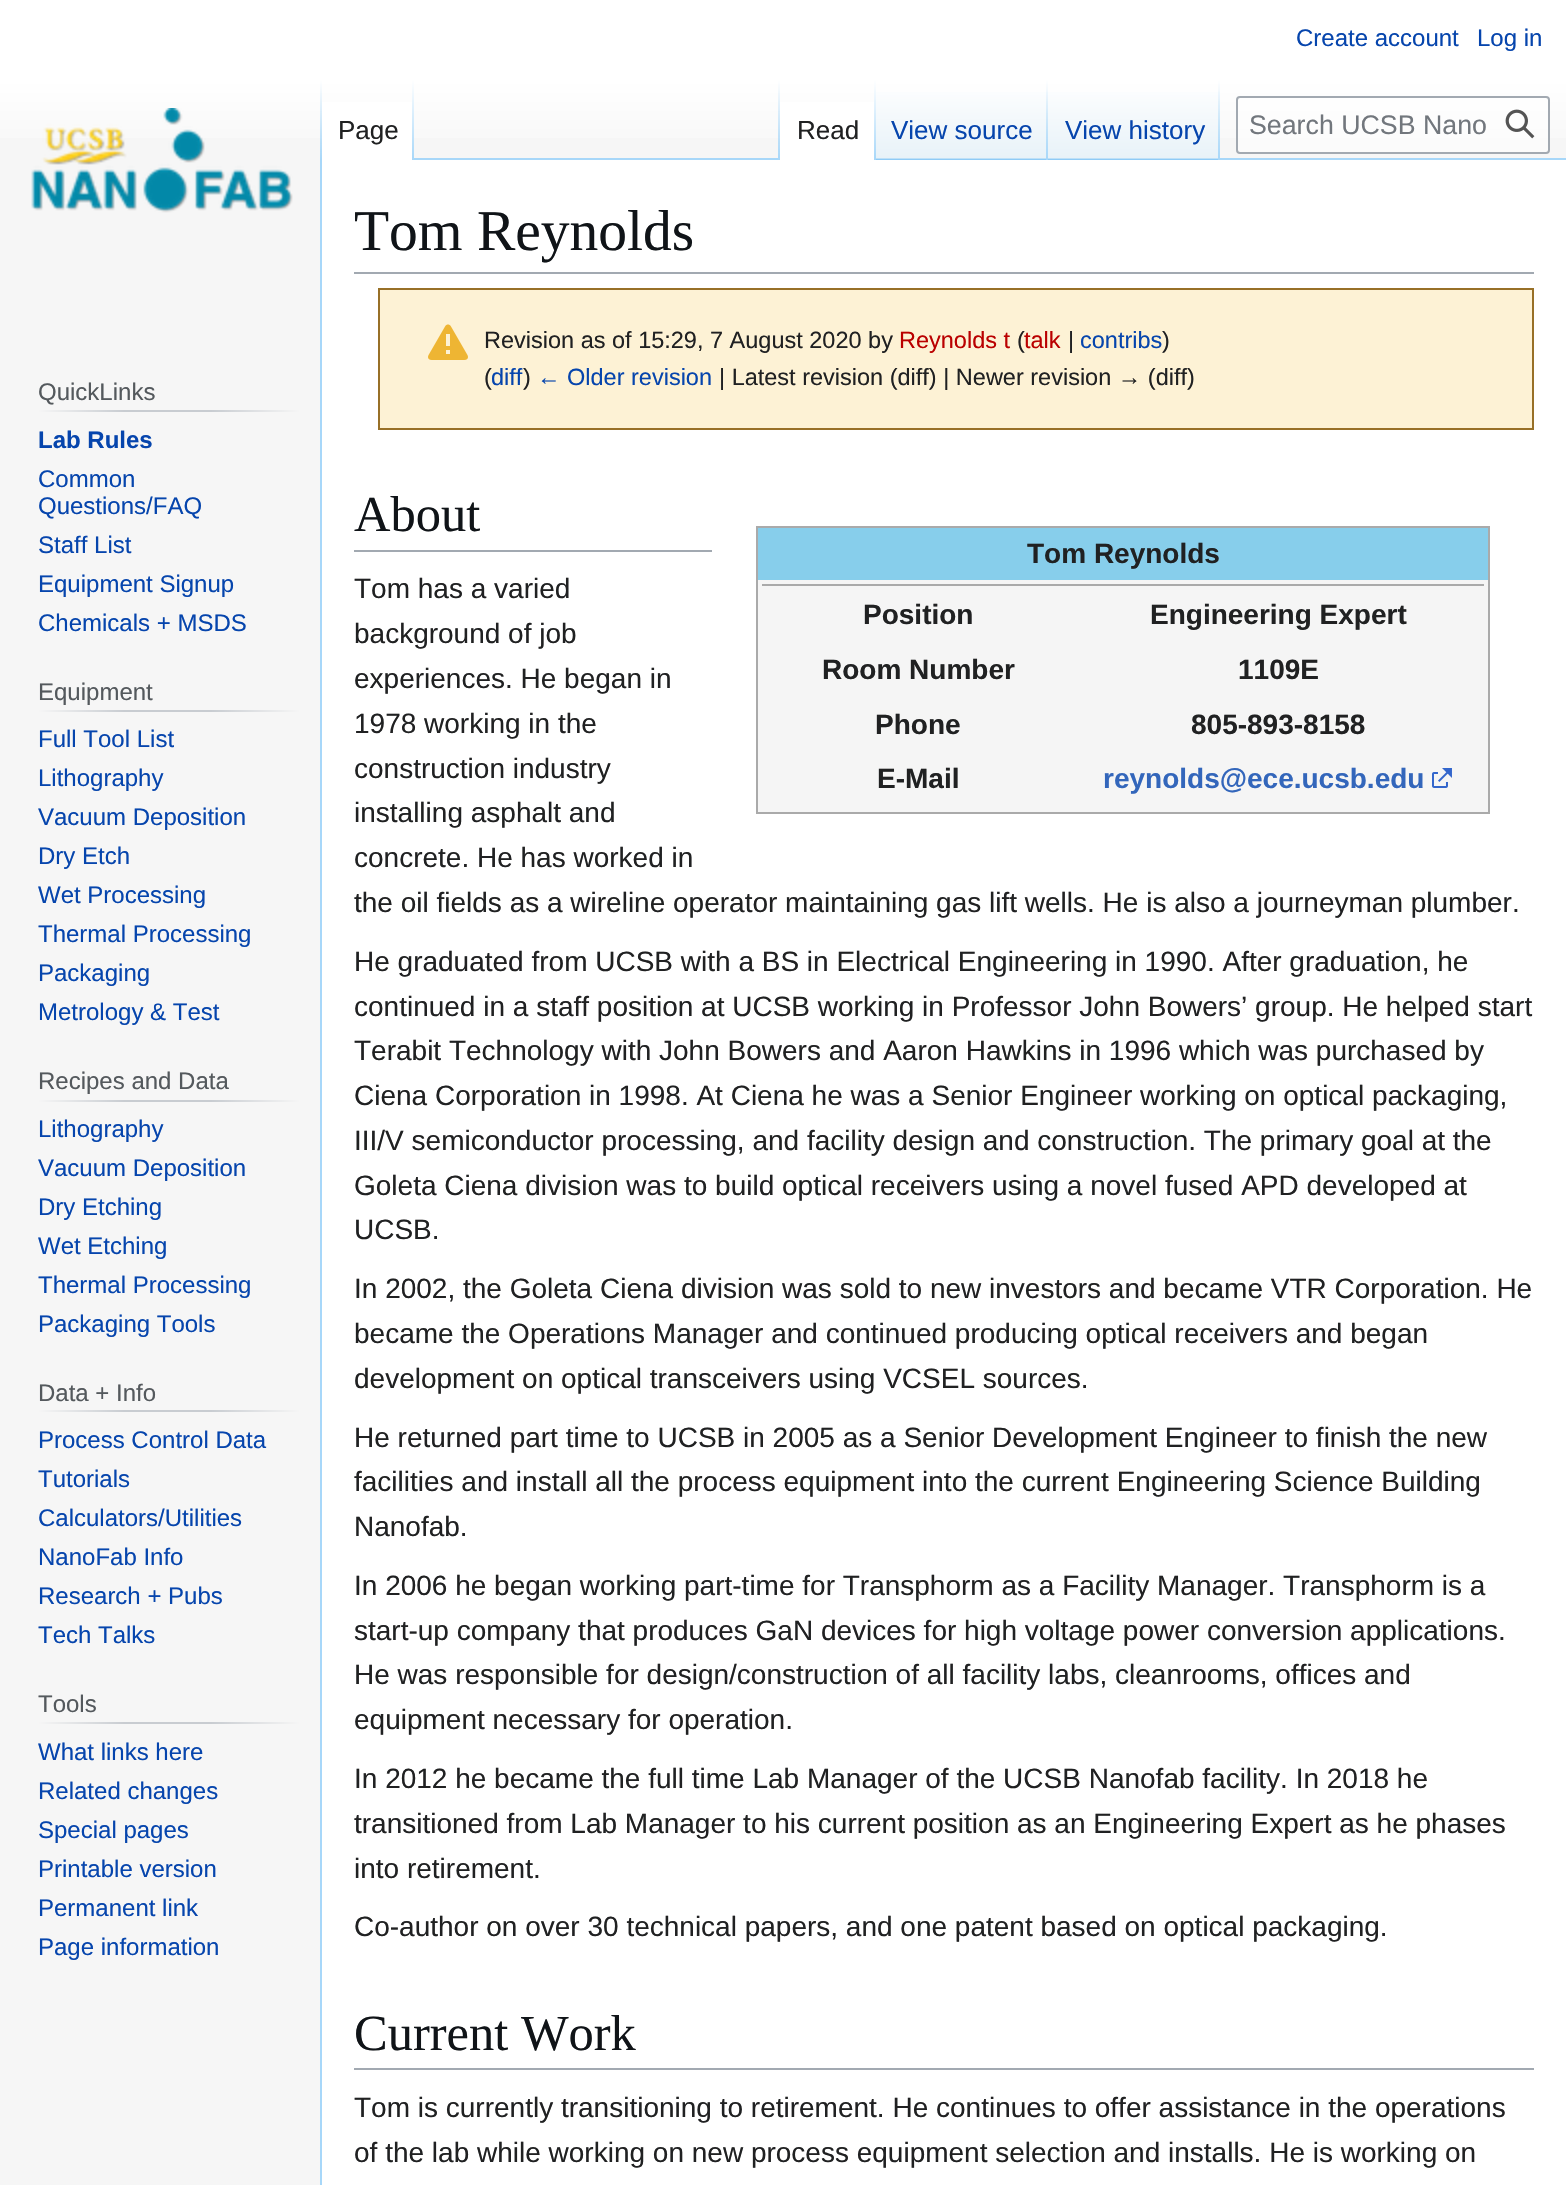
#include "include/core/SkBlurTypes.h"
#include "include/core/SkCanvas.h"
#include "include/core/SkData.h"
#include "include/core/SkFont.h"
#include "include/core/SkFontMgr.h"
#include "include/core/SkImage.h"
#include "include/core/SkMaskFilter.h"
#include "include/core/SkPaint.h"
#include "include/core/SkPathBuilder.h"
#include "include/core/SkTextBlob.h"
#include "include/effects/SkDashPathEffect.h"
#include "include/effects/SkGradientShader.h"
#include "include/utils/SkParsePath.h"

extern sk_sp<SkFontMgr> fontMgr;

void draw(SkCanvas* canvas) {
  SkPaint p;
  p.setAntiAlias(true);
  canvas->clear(SkColorSetRGB(246, 246, 246));
  {
    const SkColor colors[] = {SK_ColorWHITE, SkColorSetRGB(246, 246, 246)};
    const float stops[] = {0.5f, 1};
    const SkPoint ends[] = {{783, 0}, {783, 160}};
    p.setShader(SkGradientShader::MakeLinear(ends, colors, stops, 2, SkTileMode::kClamp));
    p.setAlpha(255);
  }
  canvas->drawRect(SkRect::MakeLTRB(0, 0, 1566, 138), p);
  p.setShader(nullptr);
  p.setColor(SkColorSetRGB(167, 215, 249));
  canvas->drawRect(SkRect::MakeLTRB(320, 158, 322, 2185), p);
  {
    const SkColor colors[] = {SkColorSetARGB(0, 167, 215, 249), SkColorSetRGB(167, 215, 249)};
    const float stops[] = {0, 1};
    const SkPoint ends[] = {{321, 80}, {321, 160}};
    p.setShader(SkGradientShader::MakeLinear(ends, colors, stops, 2, SkTileMode::kClamp));
    p.setAlpha(255);
  }
  canvas->drawRect(SkRect::MakeLTRB(320, 80, 322, 160), p);
  p.setShader(nullptr);
  p.setColor(SK_ColorWHITE);
  canvas->drawRect(SkRect::MakeLTRB(322, 102, 412, 160), p);
  {
    const SkColor colors[] = {SK_ColorWHITE, SkColorSetRGB(167, 215, 249)};
    const float stops[] = {0, 1};
    const SkPoint ends[] = {{413, 80}, {413, 160}};
    p.setShader(SkGradientShader::MakeLinear(ends, colors, stops, 2, SkTileMode::kClamp));
    p.setAlpha(255);
  }
  canvas->drawRect(SkRect::MakeLTRB(412, 80, 414, 160), p);
  p.setShader(nullptr);
  p.setColor(SkColorSetRGB(167, 215, 249));
  canvas->drawRect(SkRect::MakeLTRB(414, 158, 1566, 160), p);
  {
    const SkColor colors[] = {SkColorSetARGB(0, 167, 215, 249), SkColorSetRGB(167, 215, 249)};
    const float stops[] = {0, 1};
    const SkPoint ends[] = {{779, 80}, {779, 160}};
    p.setShader(SkGradientShader::MakeLinear(ends, colors, stops, 2, SkTileMode::kClamp));
    p.setAlpha(255);
  }
  canvas->drawRect(SkRect::MakeLTRB(778, 80, 780, 160), p);
  p.setShader(nullptr);
  p.setColor(SK_ColorWHITE);
  canvas->drawRect(SkRect::MakeLTRB(780, 102, 874, 160), p);
  {
    const SkColor colors[] = {SK_ColorWHITE, SkColorSetRGB(167, 215, 249)};
    const float stops[] = {0, 1};
    const SkPoint ends[] = {{875, 80}, {875, 160}};
    p.setShader(SkGradientShader::MakeLinear(ends, colors, stops, 2, SkTileMode::kClamp));
    p.setAlpha(255);
  }
  canvas->drawRect(SkRect::MakeLTRB(874, 80, 876, 160), p);
  {
    const SkColor colors[] = {SkColorSetRGB(119, 193, 246), SkColorSetRGB(232, 242, 248), SK_ColorWHITE};
    const float stops[] = {0, 0.03f, 1};
    const SkPoint ends[] = {{962, 160}, {962, 80}};
    p.setShader(SkGradientShader::MakeLinear(ends, colors, stops, 3, SkTileMode::kClamp));
    p.setAlpha(255);
  }
  canvas->drawRect(SkRect::MakeLTRB(876, 92, 1048, 160), p);
  {
    const SkColor colors[] = {SkColorSetARGB(0, 167, 215, 249), SkColorSetRGB(167, 215, 249)};
    const float stops[] = {0, 1};
    const SkPoint ends[] = {{1047, 80}, {1047, 160}};
    p.setShader(SkGradientShader::MakeLinear(ends, colors, stops, 2, SkTileMode::kClamp));
    p.setAlpha(255);
  }
  canvas->drawRect(SkRect::MakeLTRB(1046, 80, 1048, 160), p);
  {
    const SkColor colors[] = {SkColorSetRGB(119, 193, 246), SkColorSetRGB(232, 242, 248), SK_ColorWHITE};
    const float stops[] = {0, 0.03f, 1};
    const SkPoint ends[] = {{1134, 160}, {1134, 80}};
    p.setShader(SkGradientShader::MakeLinear(ends, colors, stops, 3, SkTileMode::kClamp));
    p.setAlpha(255);
  }
  canvas->drawRect(SkRect::MakeLTRB(1048, 92, 1220, 160), p);
  {
    const SkColor colors[] = {SkColorSetARGB(0, 167, 215, 249), SkColorSetRGB(167, 215, 249)};
    const float stops[] = {0, 1};
    const SkPoint ends[] = {{1219, 80}, {1219, 160}};
    p.setShader(SkGradientShader::MakeLinear(ends, colors, stops, 2, SkTileMode::kClamp));
    p.setAlpha(255);
  }
  canvas->drawRect(SkRect::MakeLTRB(1218, 80, 1220, 160), p);
  p.setShader(nullptr);
  p.setColor(SkColorSetARGB(128, 255, 255, 255));
  canvas->drawRoundRect(SkRect::MakeLTRB(1237, 97, 1549, 153), 3, 3, p);
  p.setStyle(SkPaint::kStroke_Style);
  p.setStrokeWidth(2);
  p.setColor(SkColorSetRGB(162, 169, 177));
  canvas->drawRoundRect(SkRect::MakeLTRB(1237, 97, 1549, 153), 3, 3, p);
  canvas->drawImageRect(SkImages::DeferredFromEncodedData(SkData::MakeFromFileName("images/1.png")), SkRect::MakeLTRB(1505, 109, 1535, 139), SkSamplingOptions());
  canvas->drawImageRect(SkImages::DeferredFromEncodedData(SkData::MakeFromFileName("images/2.png")), SkRect::MakeLTRB(31, 108, 293, 213), SkSamplingOptions());
  p.setStyle(SkPaint::kFill_Style);
  {
    const SkColor colors[] = {SkColorSetRGB(246, 246, 246), SkColorSetRGB(200, 204, 209), SkColorSetRGB(200, 204, 209), SkColorSetRGB(246, 246, 246)};
    const float stops[] = {0, 0.33f, 0.66f, 1};
    const SkPoint ends[] = {{38, 411}, {300, 411}};
    p.setShader(SkGradientShader::MakeLinear(ends, colors, stops, 4, SkTileMode::kClamp));
    p.setAlpha(255);
  }
  canvas->drawRect(SkRect::MakeLTRB(38, 410, 300, 412), p);
  {
    const SkColor colors[] = {SkColorSetRGB(246, 246, 246), SkColorSetRGB(200, 204, 209), SkColorSetRGB(200, 204, 209), SkColorSetRGB(246, 246, 246)};
    const float stops[] = {0, 0.33f, 0.66f, 1};
    const SkPoint ends[] = {{38, 711}, {300, 711}};
    p.setShader(SkGradientShader::MakeLinear(ends, colors, stops, 4, SkTileMode::kClamp));
    p.setAlpha(255);
  }
  canvas->drawRect(SkRect::MakeLTRB(38, 710, 300, 712), p);
  {
    const SkColor colors[] = {SkColorSetRGB(246, 246, 246), SkColorSetRGB(200, 204, 209), SkColorSetRGB(200, 204, 209), SkColorSetRGB(246, 246, 246)};
    const float stops[] = {0, 0.33f, 0.66f, 1};
    const SkPoint ends[] = {{38, 1101}, {300, 1101}};
    p.setShader(SkGradientShader::MakeLinear(ends, colors, stops, 4, SkTileMode::kClamp));
    p.setAlpha(255);
  }
  canvas->drawRect(SkRect::MakeLTRB(38, 1100, 300, 1102), p);
  {
    const SkColor colors[] = {SkColorSetRGB(246, 246, 246), SkColorSetRGB(200, 204, 209), SkColorSetRGB(200, 204, 209), SkColorSetRGB(246, 246, 246)};
    const float stops[] = {0, 0.33f, 0.66f, 1};
    const SkPoint ends[] = {{38, 1411}, {300, 1411}};
    p.setShader(SkGradientShader::MakeLinear(ends, colors, stops, 4, SkTileMode::kClamp));
    p.setAlpha(255);
  }
  canvas->drawRect(SkRect::MakeLTRB(38, 1410, 300, 1412), p);
  {
    const SkColor colors[] = {SkColorSetRGB(246, 246, 246), SkColorSetRGB(200, 204, 209), SkColorSetRGB(200, 204, 209), SkColorSetRGB(246, 246, 246)};
    const float stops[] = {0, 0.33f, 0.66f, 1};
    const SkPoint ends[] = {{38, 1723}, {300, 1723}};
    p.setShader(SkGradientShader::MakeLinear(ends, colors, stops, 4, SkTileMode::kClamp));
    p.setAlpha(255);
  }
  canvas->drawRect(SkRect::MakeLTRB(38, 1722, 300, 1724), p);
  p.setShader(nullptr);
  p.setColor(SK_ColorWHITE);
  canvas->drawRect(SkRect::MakeLTRB(322, 160, 1566, 2185), p);
  p.setColor(SkColorSetRGB(162, 169, 177));
  canvas->drawRect(SkRect::MakeLTRB(354, 272, 1534, 274), p);
  p.setColor(SkColorSetRGB(253, 242, 213));
  canvas->drawRect(SkRect::MakeLTRB(379, 289, 1533, 429), p);
  p.setStyle(SkPaint::kStroke_Style);
  p.setColor(SkColorSetRGB(152, 112, 39));
  canvas->drawRect(SkRect::MakeLTRB(379, 289, 1533, 429), p);
  canvas->drawImageRect(SkImages::DeferredFromEncodedData(SkData::MakeFromFileName("images/3.png")), SkRect::MakeLTRB(428, 324, 468, 360), SkSamplingOptions());
  p.setStyle(SkPaint::kFill_Style);
  p.setColor(SkColorSetRGB(162, 169, 177));
  canvas->drawRect(SkRect::MakeLTRB(354, 550, 712, 552), p);
  p.setColor(SkColorSetRGB(245, 245, 245));
  canvas->drawRect(SkRect::MakeLTRB(758, 580, 1488, 812), p);
  p.setStyle(SkPaint::kStroke_Style);
  p.setColor(SkColorSetRGB(170, 170, 170));
  canvas->drawRect(SkRect::MakeLTRB(757, 527, 1489, 813), p);
  p.setStyle(SkPaint::kFill_Style);
  p.setColor(SkColorSetRGB(135, 206, 235));
  canvas->drawRect(SkRect::MakeLTRB(758, 528, 1488, 580), p);
  p.setColor(SkColorSetRGB(170, 170, 170));
  canvas->drawRect(SkRect::MakeLTRB(762, 584, 1484, 586), p);
  canvas->drawImageRect(SkImages::DeferredFromEncodedData(SkData::MakeFromFileName("images/4.png")), SkRect::MakeLTRB(1432, 768, 1452, 788), SkSamplingOptions());
  p.setColor(SkColorSetRGB(162, 169, 177));
  canvas->drawRect(SkRect::MakeLTRB(354, 2068, 1534, 2070), p);
  SkFont font1(fontMgr->matchFamilyStyle("Liberation Sans", SkFontStyle::Normal()), 24);
  font1.setSubpixel(true);
  p.setColor(SkColorSetRGB(6, 69, 173));
  canvas->drawString("Create account", 1296, 46, font1, p);
  canvas->drawString("Log in", 1477, 46, font1, p);
  SkFont font2(fontMgr->matchFamilyStyle("Liberation Sans", SkFontStyle::Normal()), 26);
  font2.setSubpixel(true);
  p.setColor(SkColorSetRGB(32, 33, 34));
  canvas->drawString("Page", 338, 139, font2, p);
  canvas->drawString("Read", 797, 139, font2, p);
  p.setColor(SkColorSetRGB(6, 69, 173));
  canvas->drawString("View source", 891, 139, font2, p);
  canvas->drawString("View history", 1065, 139, font2, p);
  SkFont font3(fontMgr->matchFamilyStyle("Liberation Sans", SkFontStyle::Normal()), 26.75f);
  font3.setSubpixel(true);
  p.setColor(SkColorSetRGB(114, 119, 125));
  canvas->drawString("Search UCSB Nano", 1249, 134, font3, p);
  p.setColor(SkColorSetRGB(84, 89, 93));
  canvas->drawString("QuickLinks", 38, 400, font1, p);
  SkFont font4(fontMgr->matchFamilyStyle("Liberation Sans", SkFontStyle::Bold()), 24);
  font4.setSubpixel(true);
  p.setColor(SkColorSetRGB(6, 69, 173));
  canvas->drawString("Lab Rules", 38, 448, font4, p);
  canvas->drawString("Common", 38, 487, font1, p);
  canvas->drawString("Questions/FAQ", 38, 514, font1, p);
  canvas->drawString("Staff List", 38, 553, font1, p);
  canvas->drawString("Equipment Signup", 38, 592, font1, p);
  canvas->drawString("Chemicals + MSDS", 38, 631, font1, p);
  p.setColor(SkColorSetRGB(84, 89, 93));
  canvas->drawString("Equipment", 38, 700, font1, p);
  p.setColor(SkColorSetRGB(6, 69, 173));
  canvas->drawString("Full Tool List", 38, 747, font1, p);
  canvas->drawString("Lithography", 38, 786, font1, p);
  canvas->drawString("Vacuum Deposition", 38, 825, font1, p);
  canvas->drawString("Dry Etch", 38, 864, font1, p);
  canvas->drawString("Wet Processing", 38, 903, font1, p);
  canvas->drawString("Thermal Processing", 38, 942, font1, p);
  canvas->drawString("Packaging", 38, 981, font1, p);
  canvas->drawString("Metrology & Test", 38, 1020, font1, p);
  p.setColor(SkColorSetRGB(84, 89, 93));
  canvas->drawString("Recipes and Data", 38, 1089, font1, p);
  p.setColor(SkColorSetRGB(6, 69, 173));
  canvas->drawString("Lithography", 38, 1137, font1, p);
  canvas->drawString("Vacuum Deposition", 38, 1176, font1, p);
  canvas->drawString("Dry Etching", 38, 1215, font1, p);
  canvas->drawString("Wet Etching", 38, 1254, font1, p);
  canvas->drawString("Thermal Processing", 38, 1293, font1, p);
  canvas->drawString("Packaging Tools", 38, 1332, font1, p);
  p.setColor(SkColorSetRGB(84, 89, 93));
  canvas->drawString("Data + Info", 38, 1401, font1, p);
  p.setColor(SkColorSetRGB(6, 69, 173));
  canvas->drawString("Process Control Data", 38, 1448, font1, p);
  canvas->drawString("Tutorials", 38, 1487, font1, p);
  canvas->drawString("Calculators/Utilities", 38, 1526, font1, p);
  canvas->drawString("NanoFab Info", 38, 1565, font1, p);
  canvas->drawString("Research + Pubs", 38, 1604, font1, p);
  canvas->drawString("Tech Talks", 38, 1643, font1, p);
  p.setColor(SkColorSetRGB(84, 89, 93));
  canvas->drawString("Tools", 38, 1712, font1, p);
  p.setColor(SkColorSetRGB(6, 69, 173));
  canvas->drawString("What links here", 38, 1760, font1, p);
  canvas->drawString("Related changes", 38, 1799, font1, p);
  canvas->drawString("Special pages", 38, 1838, font1, p);
  canvas->drawString("Printable version", 38, 1877, font1, p);
  canvas->drawString("Permanent link", 38, 1916, font1, p);
  canvas->drawString("Page information", 38, 1955, font1, p);
  SkFont font5(fontMgr->matchFamilyStyle("Liberation Serif", SkFontStyle::Normal()), 57.5f);
  font5.setSubpixel(true);
  p.setColor(SkColorSetRGB(16, 20, 24));
  canvas->drawString("Tom Reynolds", 354, 250, font5, p);
  SkFont font6(fontMgr->matchFamilyStyle("Liberation Sans", SkFontStyle::Normal()), 23.5f);
  font6.setSubpixel(true);
  p.setColor(SkColorSetRGB(32, 33, 34));
  canvas->drawString("Revision as of 15:29, 7 August 2020 by", 484, 348, font6, p);
  p.setColor(SkColorSetRGB(186, 0, 0));
  canvas->drawString("Reynolds t", 899, 348, font6, p);
  p.setColor(SkColorSetRGB(32, 33, 34));
  canvas->drawString("(", 1017, 348, font6, p);
  p.setColor(SkColorSetRGB(186, 0, 0));
  canvas->drawString("talk", 1024, 348, font6, p);
  p.setColor(SkColorSetRGB(32, 33, 34));
  canvas->drawString("|", 1068, 348, font6, p);
  p.setColor(SkColorSetRGB(6, 69, 173));
  canvas->drawString("contribs", 1080, 348, font6, p);
  p.setColor(SkColorSetRGB(32, 33, 34));
  canvas->drawString(")", 1162, 348, font6, p);
  canvas->drawString("(", 484, 385, font6, p);
  p.setColor(SkColorSetRGB(6, 69, 173));
  canvas->drawString("diff", 491, 385, font6, p);
  p.setColor(SkColorSetRGB(32, 33, 34));
  canvas->drawString(")", 523, 385, font6, p);
  p.setColor(SkColorSetRGB(6, 69, 173));
  canvas->drawString("← Older revision", 537, 385, font6, p);
  p.setColor(SkColorSetRGB(32, 33, 34));
  canvas->drawString("| Latest revision (diff) | Newer revision → (diff)", 719, 385, font6, p);
  SkFont font7(fontMgr->matchFamilyStyle("Liberation Serif", SkFontStyle::Normal()), 50.5f);
  font7.setSubpixel(true);
  p.setColor(SkColorSetRGB(16, 20, 24));
  canvas->drawString("About", 354, 531, font7, p);
  SkFont font8(fontMgr->matchFamilyStyle("Liberation Sans", SkFontStyle::Bold()), 28);
  font8.setSubpixel(true);
  p.setColor(SkColorSetRGB(32, 33, 34));
  canvas->drawString("Tom Reynolds", 1027, 563, font8, p);
  canvas->drawString("Position", 863, 624, font8, p);
  canvas->drawString("Engineering Expert", 1150, 624, font8, p);
  canvas->drawString("Room Number", 822, 679, font8, p);
  canvas->drawString("1109E", 1238, 679, font8, p);
  canvas->drawString("Phone", 875, 734, font8, p);
  canvas->drawString("805-893-8158", 1191, 734, font8, p);
  canvas->drawString("E-Mail", 877, 788, font8, p);
  p.setColor(SkColorSetRGB(51, 102, 187));
  canvas->drawString("reynolds@ece.ucsb.edu", 1103, 788, font8, p);
  SkFont font9(fontMgr->matchFamilyStyle("Liberation Sans", SkFontStyle::Normal()), 28);
  font9.setSubpixel(true);
  p.setColor(SkColorSetRGB(32, 33, 34));
  canvas->drawString("Tom has a varied", 354, 598, font9, p);
  canvas->drawString("background of job", 354, 643, font9, p);
  canvas->drawString("experiences. He began in", 354, 688, font9, p);
  canvas->drawString("1978 working in the", 354, 733, font9, p);
  canvas->drawString("construction industry", 354, 778, font9, p);
  canvas->drawString("installing asphalt and", 354, 822, font9, p);
  canvas->drawString("concrete. He has worked in", 354, 867, font9, p);
  canvas->drawString("the oil fields as a wireline operator maintaining gas lift wells. He is also a journeyman plumber.", 354, 912, font9, p);
  canvas->drawString("He graduated from UCSB with a BS in Electrical Engineering in 1990. After graduation, he", 354, 971, font9, p);
  canvas->drawString("continued in a staff position at UCSB working in Professor John Bowers’ group. He helped start", 354, 1016, font9, p);
  canvas->drawString("Terabit Technology with John Bowers and Aaron Hawkins in 1996 which was purchased by", 354, 1060, font9, p);
  canvas->drawString("Ciena Corporation in 1998. At Ciena he was a Senior Engineer working on optical packaging,", 354, 1105, font9, p);
  canvas->drawString("III/V semiconductor processing, and facility design and construction. The primary goal at the", 354, 1150, font9, p);
  canvas->drawString("Goleta Ciena division was to build optical receivers using a novel fused APD developed at", 354, 1195, font9, p);
  canvas->drawString("UCSB.", 354, 1239, font9, p);
  canvas->drawString("In 2002, the Goleta Ciena division was sold to new investors and became VTR Corporation. He", 354, 1298, font9, p);
  canvas->drawString("became the Operations Manager and continued producing optical receivers and began", 354, 1343, font9, p);
  canvas->drawString("development on optical transceivers using VCSEL sources.", 354, 1388, font9, p);
  canvas->drawString("He returned part time to UCSB in 2005 as a Senior Development Engineer to finish the new", 354, 1447, font9, p);
  canvas->drawString("facilities and install all the process equipment into the current Engineering Science Building", 354, 1491, font9, p);
  canvas->drawString("Nanofab.", 354, 1536, font9, p);
  canvas->drawString("In 2006 he began working part-time for Transphorm as a Facility Manager. Transphorm is a", 354, 1595, font9, p);
  canvas->drawString("start-up company that produces GaN devices for high voltage power conversion applications.", 354, 1640, font9, p);
  canvas->drawString("He was responsible for design/construction of all facility labs, cleanrooms, offices and", 354, 1684, font9, p);
  canvas->drawString("equipment necessary for operation.", 354, 1729, font9, p);
  canvas->drawString("In 2012 he became the full time Lab Manager of the UCSB Nanofab facility. In 2018 he", 354, 1788, font9, p);
  canvas->drawString("transitioned from Lab Manager to his current position as an Engineering Expert as he phases", 354, 1833, font9, p);
  canvas->drawString("into retirement.", 354, 1878, font9, p);
  canvas->drawString("Co-author on over 30 technical papers, and one patent based on optical packaging.", 354, 1936, font9, p);
  p.setColor(SkColorSetRGB(16, 20, 24));
  canvas->drawString("Current Work", 354, 2050, font7, p);
  p.setColor(SkColorSetRGB(32, 33, 34));
  canvas->drawString("Tom is currently transitioning to retirement. He continues to offer assistance in the operations", 354, 2117, font9, p);
  canvas->drawString("of the lab while working on new process equipment selection and installs. He is working on", 354, 2162, font9, p);
}
